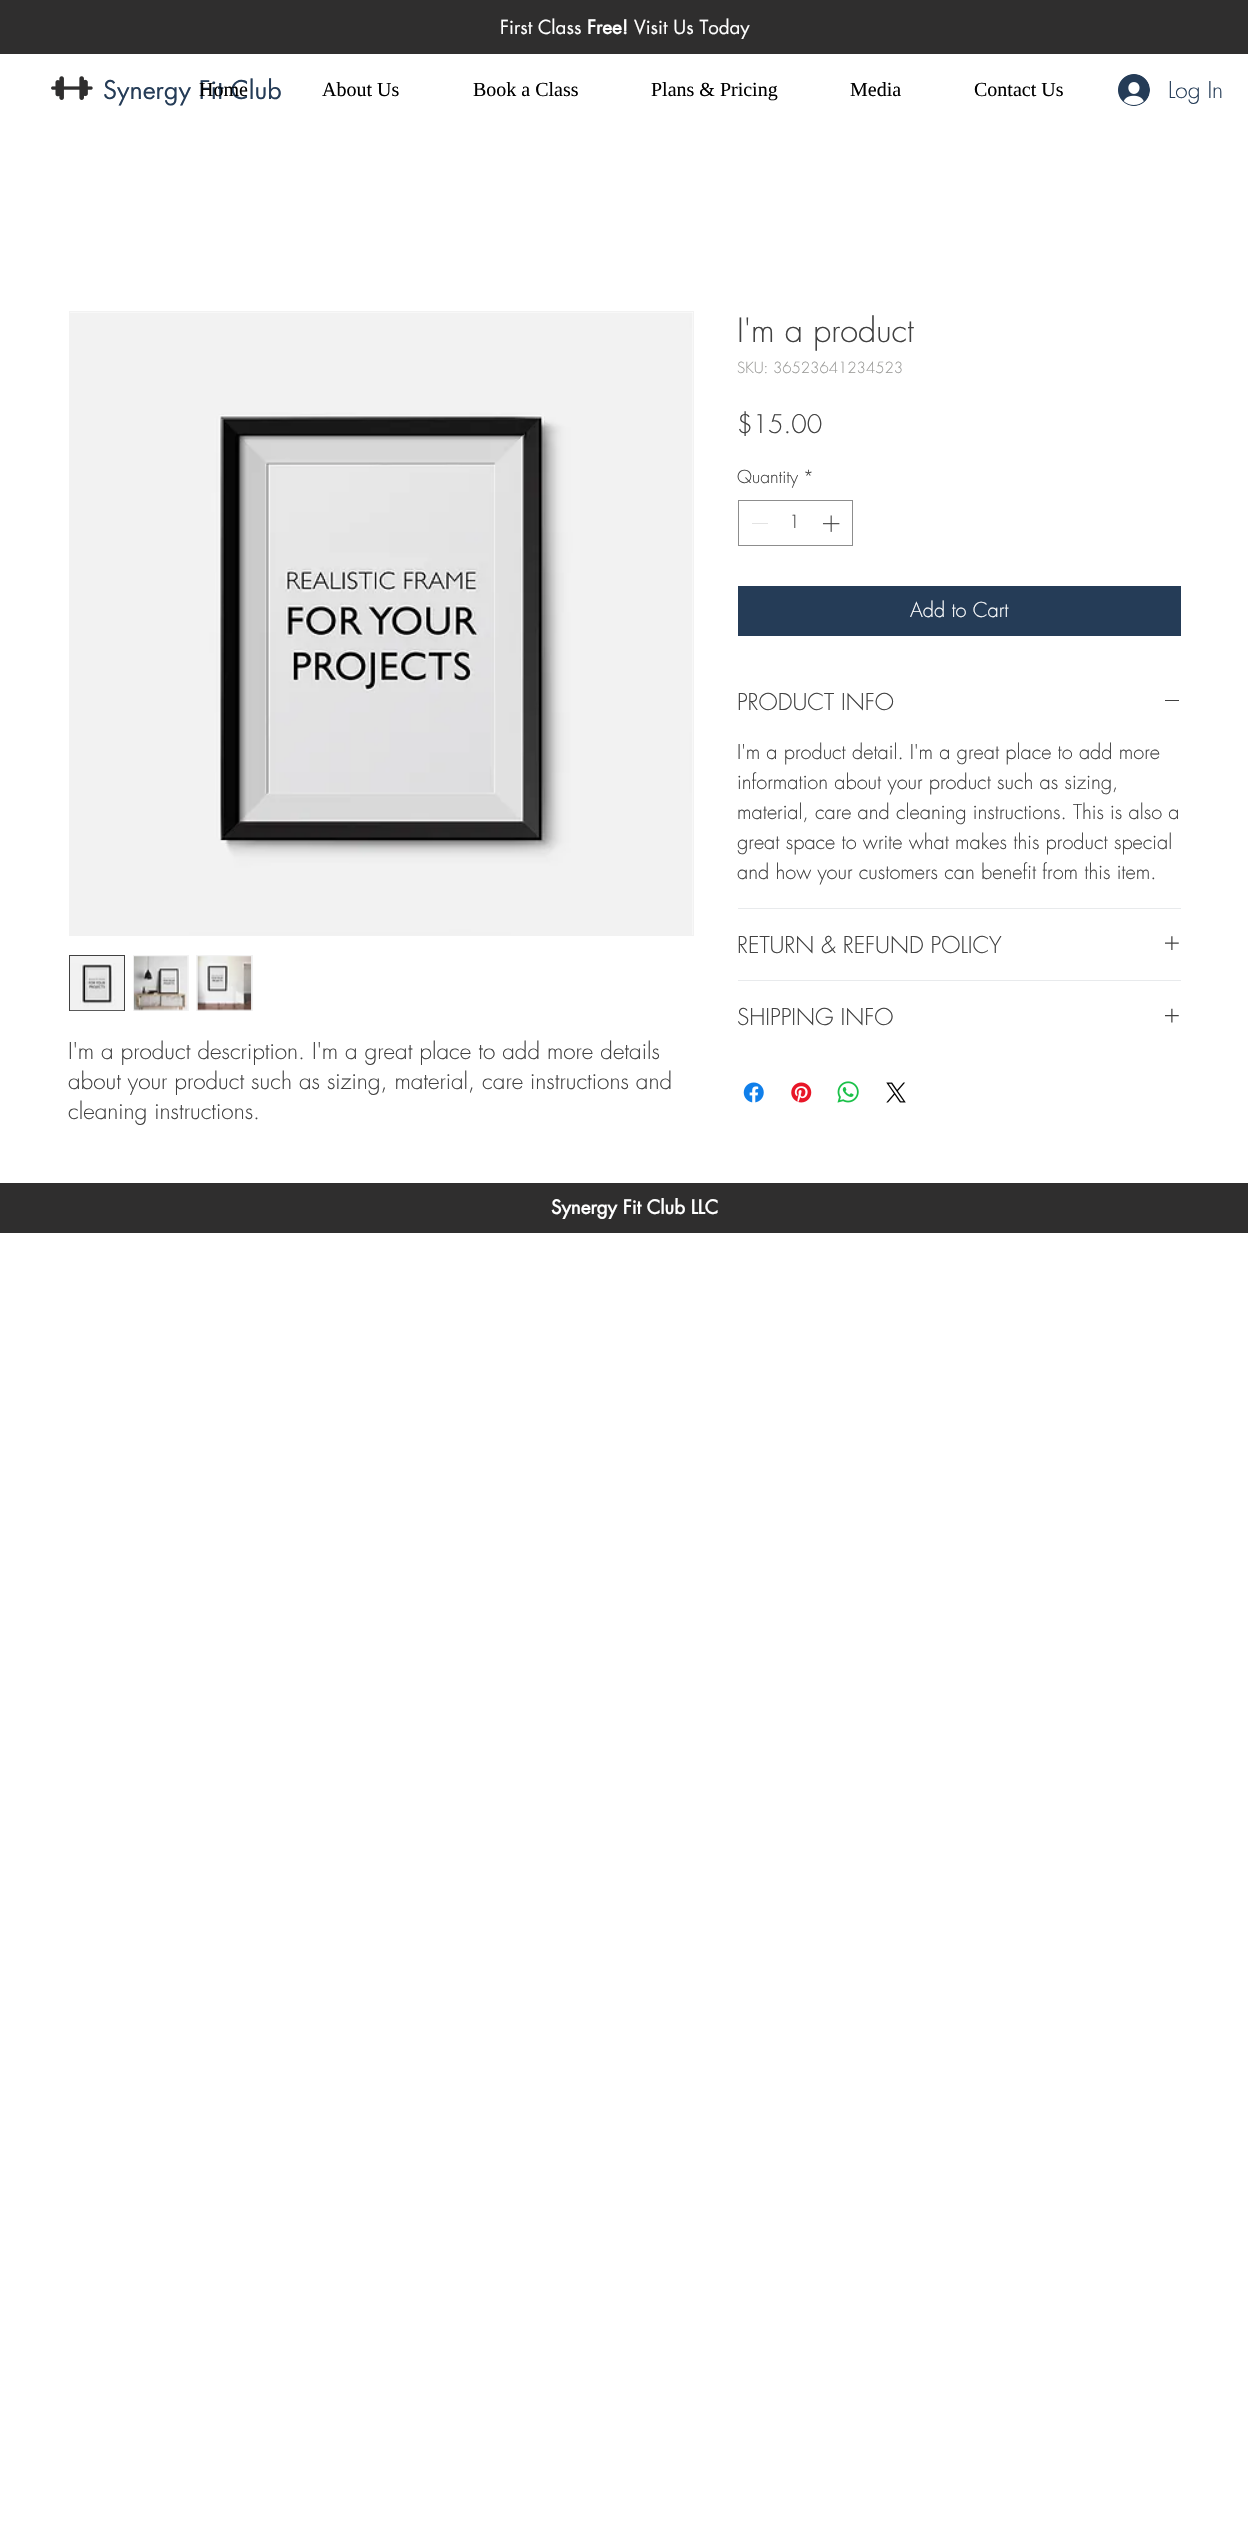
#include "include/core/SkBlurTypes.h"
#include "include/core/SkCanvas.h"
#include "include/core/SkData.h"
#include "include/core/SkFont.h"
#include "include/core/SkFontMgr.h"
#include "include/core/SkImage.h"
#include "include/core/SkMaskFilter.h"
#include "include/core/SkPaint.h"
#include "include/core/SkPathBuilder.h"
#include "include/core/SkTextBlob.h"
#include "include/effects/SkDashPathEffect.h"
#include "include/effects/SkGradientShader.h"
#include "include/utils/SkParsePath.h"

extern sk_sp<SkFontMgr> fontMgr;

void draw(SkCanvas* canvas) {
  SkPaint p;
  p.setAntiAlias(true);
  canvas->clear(SK_ColorWHITE);
  p.setColor(SkColorSetRGB(47, 46, 46));
  canvas->drawRect(SkRect::MakeLTRB(0, 0, 1248, 54), p);
  canvas->drawImageRect(SkImages::DeferredFromEncodedData(SkData::MakeFromFileName("images/1.png")), SkRect::MakeLTRB(51, 76, 93, 100), SkSamplingOptions());
  canvas->drawImageRect(SkImages::DeferredFromEncodedData(SkData::MakeFromFileName("images/2.png")), SkRect::MakeLTRB(1118, 74, 1150, 106), SkSamplingOptions());
  p.setStyle(SkPaint::kStroke_Style);
  p.setStrokeWidth(1);
  p.setColor(SkColorSetRGB(141, 141, 141));
  canvas->drawRect(SkRect::MakeLTRB(738.5f, 500.5f, 852.5f, 545.5f), p);
  p.setStyle(SkPaint::kFill_Style);
  p.setColor(SkColorSetRGB(227, 227, 227));
  canvas->drawRect(SkRect::MakeLTRB(752, 523, 768, 524), p);
  canvas->drawImageRect(SkImages::DeferredFromEncodedData(SkData::MakeFromFileName("images/3.png")), SkRect::MakeLTRB(822, 515, 840, 532), SkSamplingOptions());
  p.setColor(SkColorSetRGB(37, 60, 87));
  canvas->drawRect(SkRect::MakeLTRB(738, 586, 1181, 636), p);
  p.setColor(SkColorSetRGB(232, 234, 236));
  canvas->drawRect(SkRect::MakeLTRB(738, 908, 1181, 909), p);
  p.setColor(SkColorSetRGB(65, 65, 65));
  canvas->drawRect(SkRect::MakeLTRB(1165, 700, 1179, 701), p);
  p.setColor(SkColorSetRGB(232, 234, 236));
  canvas->drawRect(SkRect::MakeLTRB(738, 980, 1181, 981), p);
  canvas->drawImageRect(SkImages::DeferredFromEncodedData(SkData::MakeFromFileName("images/4.png")), SkRect::MakeLTRB(1165, 936, 1179, 950), SkSamplingOptions());
  canvas->drawImageRect(SkImages::DeferredFromEncodedData(SkData::MakeFromFileName("images/5.png")), SkRect::MakeLTRB(1165, 1008, 1179, 1023), SkSamplingOptions());
  canvas->drawImageRect(SkImages::DeferredFromEncodedData(SkData::MakeFromFileName("images/6.png")), SkRect::MakeLTRB(743, 1082, 764, 1103), SkSamplingOptions());
  canvas->drawImageRect(SkImages::DeferredFromEncodedData(SkData::MakeFromFileName("images/7.png")), SkRect::MakeLTRB(791, 1082, 812, 1103), SkSamplingOptions());
  canvas->drawImageRect(SkImages::DeferredFromEncodedData(SkData::MakeFromFileName("images/8.png")), SkRect::MakeLTRB(837, 1081, 859, 1103), SkSamplingOptions());
  canvas->drawImageRect(SkImages::DeferredFromEncodedData(SkData::MakeFromFileName("images/9.png")), SkRect::MakeLTRB(886, 1082, 906, 1103), SkSamplingOptions());
  p.setStyle(SkPaint::kStroke_Style);
  p.setColor(SkColorSetRGB(242, 242, 242));
  canvas->drawRect(SkRect::MakeLTRB(69.5f, 311.5f, 693.5f, 935.5f), p);
  canvas->drawImageRect(SkImages::DeferredFromEncodedData(SkData::MakeFromFileName("images/10.png")), SkRect::MakeLTRB(70, 312, 693, 935), SkSamplingOptions());
  p.setStyle(SkPaint::kFill_Style);
  canvas->drawRect(SkRect::MakeLTRB(69.5f, 955.5f, 124.5f, 1010.5f), p);
  p.setStyle(SkPaint::kStroke_Style);
  p.setColor(SkColorSetRGB(65, 65, 65));
  canvas->drawRect(SkRect::MakeLTRB(69.5f, 955.5f, 124.5f, 1010.5f), p);
  canvas->drawImageRect(SkImages::DeferredFromEncodedData(SkData::MakeFromFileName("images/11.png")), SkRect::MakeLTRB(70, 963, 124, 1011), SkSamplingOptions());
  p.setStyle(SkPaint::kFill_Style);
  p.setColor(SkColorSetRGB(242, 242, 242));
  canvas->drawRect(SkRect::MakeLTRB(133, 955, 189, 1011), p);
  canvas->drawImageRect(SkImages::DeferredFromEncodedData(SkData::MakeFromFileName("images/12.png")), SkRect::MakeLTRB(133, 956, 188, 1011), SkSamplingOptions());
  canvas->drawRect(SkRect::MakeLTRB(196, 955, 253, 1011), p);
  canvas->drawImageRect(SkImages::DeferredFromEncodedData(SkData::MakeFromFileName("images/13.png")), SkRect::MakeLTRB(197, 956, 252, 1011), SkSamplingOptions());
  p.setColor(SkColorSetRGB(47, 46, 46));
  canvas->drawRect(SkRect::MakeLTRB(0, 1183, 1248, 1233), p);
  SkFont font1(fontMgr->matchFamilyStyle("futura", SkFontStyle::Normal()), 18.75f);
  font1.setSubpixel(true);
  p.setColor(SK_ColorWHITE);
  canvas->drawString("First Class", 500, 34, font1, p);
  SkFont font2(fontMgr->matchFamilyStyle("futura", SkFontStyle::Bold()), 18.75f);
  font2.setSubpixel(true);
  canvas->drawString("Free!", 587, 34, font2, p);
  canvas->drawString("Visit Us Today", 634, 34, font1, p);
  SkFont font3(fontMgr->matchFamilyStyle("futura", SkFontStyle::Normal()), 25);
  font3.setSubpixel(true);
  p.setColor(SkColorSetRGB(37, 60, 87));
  canvas->drawString("Synergy Fit Club", 103, 99, font3, p);
  SkFont font4(fontMgr->matchFamilyStyle("Liberation Serif", SkFontStyle::Normal()), 20);
  font4.setSubpixel(true);
  p.setColor(SK_ColorBLACK);
  canvas->drawString("Home", 199, 96, font4, p);
  canvas->drawString("About Us", 322, 96, font4, p);
  canvas->drawString("Book a Class", 473, 96, font4, p);
  canvas->drawString("Plans & Pricing", 651, 96, font4, p);
  canvas->drawString("Media", 850, 96, font4, p);
  canvas->drawString("Contact Us", 974, 96, font4, p);
  SkFont font5(fontMgr->matchFamilyStyle("futura", SkFontStyle(300, SkFontStyle::kNormal_Width, SkFontStyle::kUpright_Slant)), 22.5f);
  font5.setSubpixel(true);
  p.setColor(SkColorSetRGB(37, 60, 87));
  canvas->drawString("Log In", 1168, 98, font5, p);
  SkFont font6(fontMgr->matchFamilyStyle("futura", SkFontStyle(300, SkFontStyle::kNormal_Width, SkFontStyle::kUpright_Slant)), 32.5f);
  font6.setSubpixel(true);
  p.setColor(SkColorSetRGB(65, 65, 65));
  canvas->drawString("I'm a product", 737, 342, font6, p);
  SkFont font7(fontMgr->matchFamilyStyle("futura", SkFontStyle(300, SkFontStyle::kNormal_Width, SkFontStyle::kUpright_Slant)), 15);
  font7.setSubpixel(true);
  p.setColor(SkColorSetRGB(153, 153, 151));
  canvas->drawString("SKU: 36523641234523", 737, 373, font7, p);
  SkFont font8(fontMgr->matchFamilyStyle("futura", SkFontStyle(300, SkFontStyle::kNormal_Width, SkFontStyle::kUpright_Slant)), 25);
  font8.setSubpixel(true);
  p.setColor(SkColorSetRGB(65, 65, 65));
  canvas->drawString("$15.00", 737, 433, font8, p);
  SkFont font9(fontMgr->matchFamilyStyle("futura", SkFontStyle(300, SkFontStyle::kNormal_Width, SkFontStyle::kUpright_Slant)), 17.5f);
  font9.setSubpixel(true);
  canvas->drawString("Quantity", 737, 483, font9, p);
  canvas->drawString("*", 803, 483, font9, p);
  canvas->drawString("1", 789, 528, font9, p);
  SkFont font10(fontMgr->matchFamilyStyle("futura", SkFontStyle(300, SkFontStyle::kNormal_Width, SkFontStyle::kUpright_Slant)), 20);
  font10.setSubpixel(true);
  p.setColor(SK_ColorWHITE);
  canvas->drawString("Add to Cart", 910, 617, font10, p);
  p.setColor(SkColorSetRGB(65, 65, 65));
  canvas->drawString("PRODUCT INFO", 737, 710, font5, p);
  canvas->drawString("I'm a product detail. I'm a great place to add more", 737, 759, font10, p);
  canvas->drawString("information about your product such as sizing,", 737, 789, font10, p);
  canvas->drawString("material, care and cleaning instructions. This is also a", 737, 819, font10, p);
  canvas->drawString("great space to write what makes this product special", 737, 849, font10, p);
  canvas->drawString("and how your customers can benefit from this item.", 737, 879, font10, p);
  canvas->drawString("RETURN & REFUND POLICY", 737, 953, font5, p);
  canvas->drawString("SHIPPING INFO", 737, 1025, font5, p);
  canvas->drawString("I'm a product description. I'm a great place to add more details", 68, 1059, font5, p);
  canvas->drawString("about your product such as sizing, material, care instructions and", 68, 1089, font5, p);
  canvas->drawString("cleaning instructions.", 68, 1119, font5, p);
  p.setColor(SK_ColorWHITE);
  canvas->drawString("Synergy Fit Club LLC", 551, 1214, font2, p);
}
